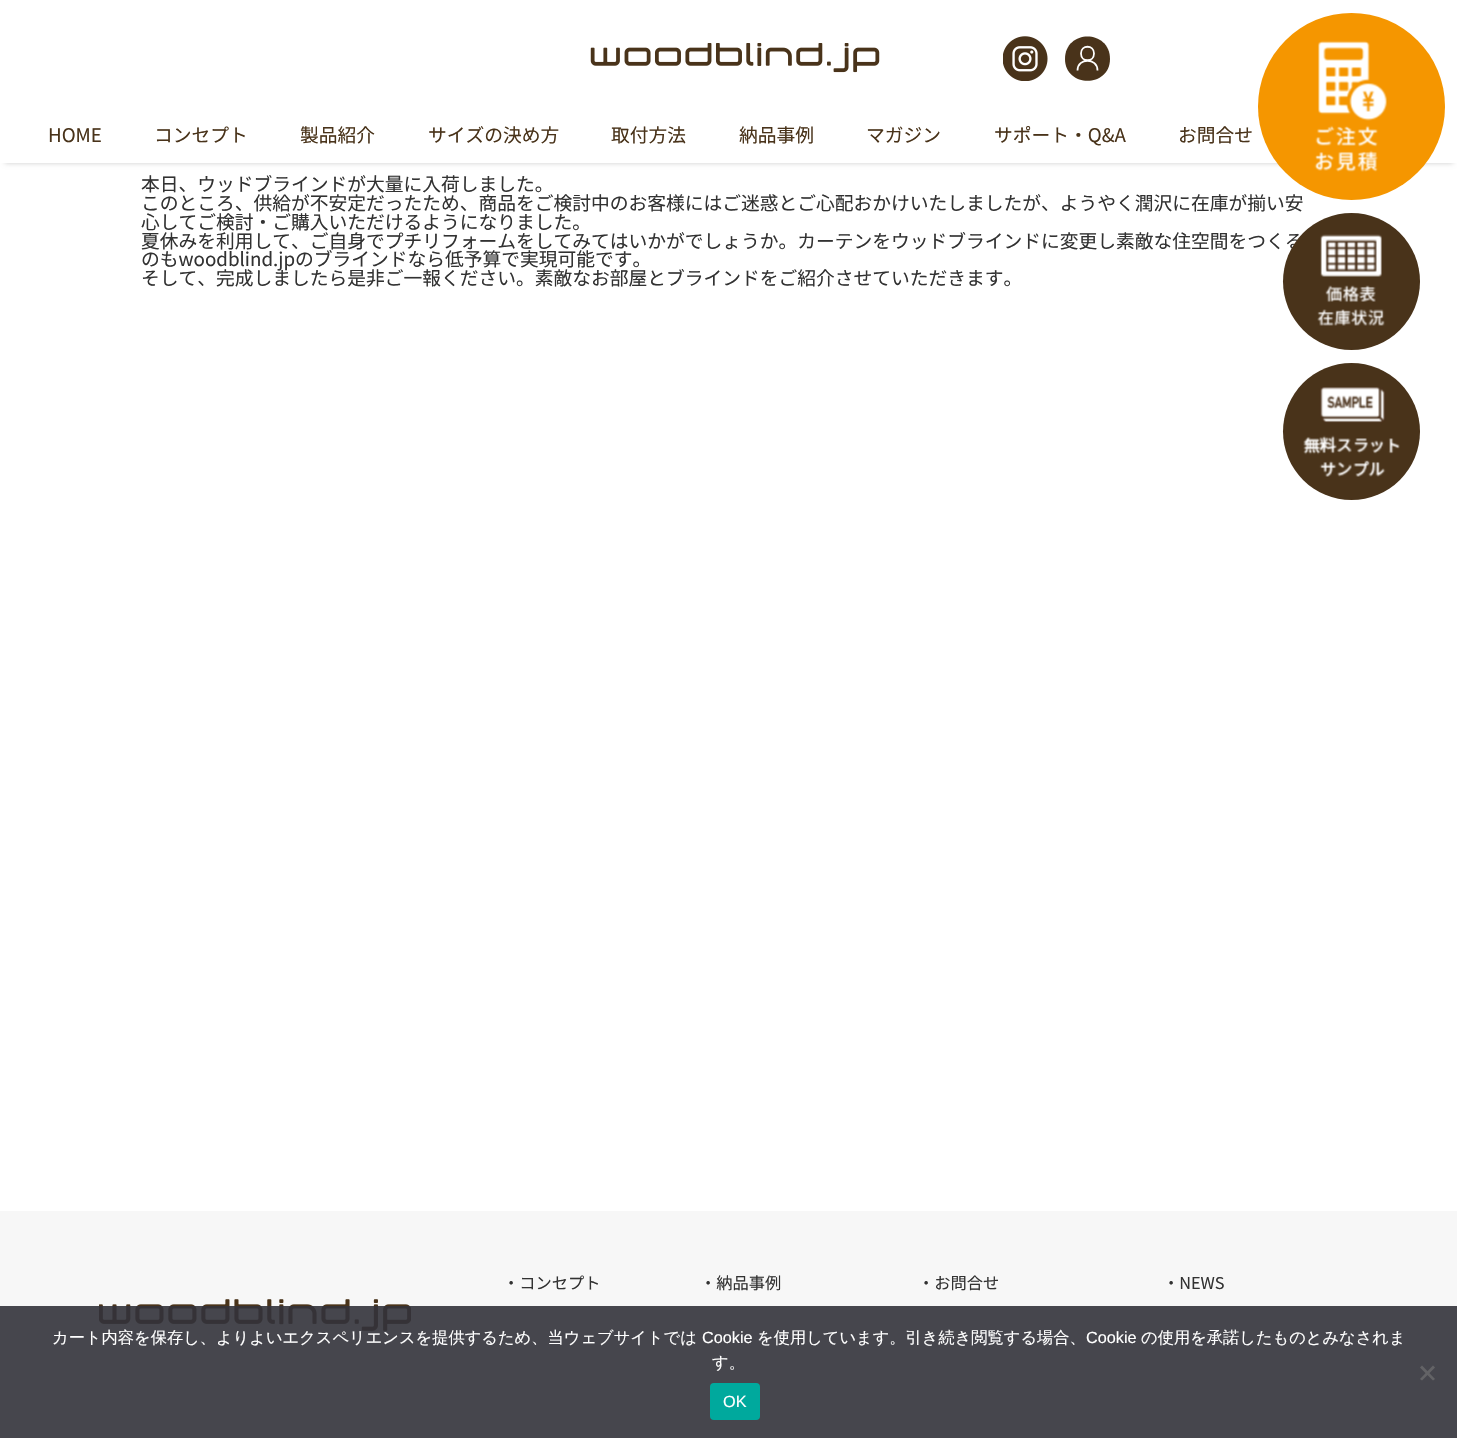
#include "include/core/SkBlurTypes.h"
#include "include/core/SkCanvas.h"
#include "include/core/SkData.h"
#include "include/core/SkFont.h"
#include "include/core/SkFontMgr.h"
#include "include/core/SkImage.h"
#include "include/core/SkMaskFilter.h"
#include "include/core/SkPaint.h"
#include "include/core/SkPathBuilder.h"
#include "include/core/SkTextBlob.h"
#include "include/effects/SkDashPathEffect.h"
#include "include/effects/SkGradientShader.h"
#include "include/utils/SkParsePath.h"

extern sk_sp<SkFontMgr> fontMgr;

void draw(SkCanvas* canvas) {
  SkPaint p;
  p.setAntiAlias(true);
  canvas->clear(SK_ColorWHITE);
  canvas->save();
  canvas->clipPath(SkPathBuilder(SkPathFillType::kEvenOdd).moveTo(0, 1).lineTo(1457, 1).lineTo(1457, 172).lineTo(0, 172).close().moveTo(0, 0).lineTo(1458, 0).lineTo(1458, 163).lineTo(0, 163).close().detach(), true);
  p.setColor(SkColorSetARGB(51, 0, 0, 0));
  p.setMaskFilter(SkMaskFilter::MakeBlur(kNormal_SkBlurStyle, 2.5f));
  canvas->drawRect(SkRect::MakeLTRB(5, 10, 1453, 163), p);
  p.setMaskFilter(nullptr);
  canvas->restore();
  p.setColor(SkColorSetARGB(230, 255, 255, 255));
  canvas->drawRect(SkRect::MakeLTRB(3, 162, 1455, 163), p);
  canvas->drawImageRect(SkImages::DeferredFromEncodedData(SkData::MakeFromFileName("images/1.png")), SkRect::MakeLTRB(590, 43, 880, 73), SkSamplingOptions());
  canvas->drawImageRect(SkImages::DeferredFromEncodedData(SkData::MakeFromFileName("images/2.png")), SkRect::MakeLTRB(1003, 36, 1048, 81), SkSamplingOptions());
  p.setColor(SkColorSetRGB(73, 51, 26));
  canvas->drawPath(SkPathBuilder().moveTo(1065, 59).cubicTo(1065, 88, 1110, 88, 1110, 59).cubicTo(1110, 29, 1065, 29, 1065, 59).close().detach(), p);
  p.setStyle(SkPaint::kStroke_Style);
  p.setStrokeWidth(1.8f);
  p.setColor(SK_ColorWHITE);
  canvas->drawPath(SkPathBuilder().moveTo(1094, 53.5f).cubicTo(1094, 62.5f, 1081, 62.5f, 1081, 53.5f).cubicTo(1081, 44.5f, 1094, 44.5f, 1094, 53.5f).close().moveTo(1077.5f, 70.5f).cubicTo(1077.5f, 57.5f, 1097.5f, 57.5f, 1097.5f, 70.5f).detach(), p);
  p.setStyle(SkPaint::kFill_Style);
  p.setColor(SkColorSetRGB(73, 51, 26));
  canvas->drawCircle(1351.5f, 431.5f, 68.5f, p);
  canvas->drawImageRect(SkImages::DeferredFromEncodedData(SkData::MakeFromFileName("images/5.png")), SkRect::MakeLTRB(1303, 387, 1400, 477), SkSamplingOptions());
  p.setColor(SkColorSetRGB(247, 247, 247));
  canvas->drawRect(SkRect::MakeLTRB(0, 1211, 1457, 1438), p);
  canvas->drawImageRect(SkImages::DeferredFromEncodedData(SkData::MakeFromFileName("images/6.png")), SkRect::MakeLTRB(99, 1299, 411, 1331), SkSamplingOptions());
  p.setColor(SkColorSetARGB(230, 50, 50, 58));
  canvas->drawRect(SkRect::MakeLTRB(0, 1306, 1457, 1438), p);
  p.setColor(SkColorSetRGB(99, 99, 102));
  canvas->drawPath(SkPathBuilder().moveTo(1433, 1365.5f).lineTo(1435, 1367.5f).lineTo(1422, 1380.5f).lineTo(1420, 1379).close().detach(), p);
  canvas->drawPath(SkPathBuilder().moveTo(1420, 1367.5f).lineTo(1422, 1365.5f).lineTo(1435, 1379).lineTo(1433, 1380.5f).close().detach(), p);
  p.setColor(SkColorSetRGB(0, 169, 157));
  canvas->drawRoundRect(SkRect::MakeLTRB(710, 1383, 760, 1420), 4, 4, p);
  SkFont font1(fontMgr->matchFamilyStyle("Noto Sans JP", SkFontStyle::Normal()), 18.75f);
  font1.setSubpixel(true);
  p.setColor(SkColorSetRGB(73, 51, 26));
  canvas->drawString("HOME", 48, 142, font1, p);
  canvas->drawString("コンセプト", 154, 142, font1, p);
  canvas->drawString("製品紹介", 300, 142, font1, p);
  canvas->drawString("サイズの決め方", 428, 142, font1, p);
  canvas->drawString("取付方法", 611, 142, font1, p);
  canvas->drawString("納品事例", 739, 142, font1, p);
  canvas->drawString("マガジン", 866, 142, font1, p);
  canvas->drawString("サポート・Q&A", 994, 142, font1, p);
  canvas->drawString("お問合せ", 1178, 142, font1, p);
  p.setColor(SkColorSetRGB(50, 50, 50));
  canvas->drawString("本日、ウッドブラインドが大量に入荷しました。", 141, 191, font1, p);
  canvas->drawString("このところ、供給が不安定だったため、商品をご検討中のお客様にはご迷惑とご心配おかけいたしましたが、ようやく潤沢に在庫が揃い安", 141, 210, font1, p);
  p.setColor(SkColorSetRGB(245, 150, 0));
  canvas->drawCircle(1351.5f, 106.5f, 93.5f, p);
  canvas->drawImageRect(SkImages::DeferredFromEncodedData(SkData::MakeFromFileName("images/3.png")), SkRect::MakeLTRB(1314, 40, 1387, 172), SkSamplingOptions());
  p.setColor(SkColorSetRGB(50, 50, 50));
  canvas->drawString("心してご検討・ご購入いただけるようになりました。", 141, 229, font1, p);
  canvas->drawString("夏休みを利用して、ご自身でプチリフォームをしてみてはいかがでしょうか。カーテンをウッドブラインドに変更し素敵な住空間をつくる", 141, 248, font1, p);
  p.setColor(SkColorSetRGB(73, 51, 26));
  canvas->drawCircle(1351.5f, 281.5f, 68.5f, p);
  canvas->drawImageRect(SkImages::DeferredFromEncodedData(SkData::MakeFromFileName("images/4.png")), SkRect::MakeLTRB(1317, 234, 1385, 326), SkSamplingOptions());
  p.setColor(SkColorSetRGB(50, 50, 50));
  canvas->drawString("のもwoodblind.jpのブラインドなら低予算で実現可能です。", 141, 266, font1, p);
  canvas->drawString("そして、完成しましたら是非ご一報ください。素敵なお部屋とブラインドをご紹介させていただきます。", 141, 285, font1, p);
  SkFont font2(fontMgr->matchFamilyStyle("Noto Sans JP", SkFontStyle::Normal()), 16.25f);
  font2.setSubpixel(true);
  canvas->drawString("・コンセプト", 503, 1289, font2, p);
  canvas->drawString("・納品事例", 700, 1289, font2, p);
  canvas->drawString("・お問合せ", 918, 1289, font2, p);
  canvas->drawString("・NEWS", 1163, 1289, font2, p);
  SkFont font3(fontMgr->matchFamilyStyle("WenQuanYi Zen Hei", SkFontStyle(500, SkFontStyle::kNormal_Width, SkFontStyle::kUpright_Slant)), 16.25f);
  font3.setSubpixel(true);
  p.setColor(SK_ColorWHITE);
  canvas->drawString("カート内容を保存し、よりよいエクスペリエンスを提供するため、当ウェブサイトでは", 52, 1343, font3, p);
  SkFont font4(fontMgr->matchFamilyStyle("Liberation Sans", SkFontStyle::Normal()), 16.25f);
  font4.setSubpixel(true);
  canvas->drawString("Cookie", 702, 1343, font4, p);
  canvas->drawString("を使用しています。引き続き閲覧する場合、", 757, 1343, font3, p);
  canvas->drawString("Cookie", 1086, 1343, font4, p);
  canvas->drawString("の使用を承諾したものとみなされま", 1141, 1343, font3, p);
  canvas->drawString("す。", 712, 1368, font3, p);
  canvas->drawString("OK", 723, 1407, font4, p);
}
